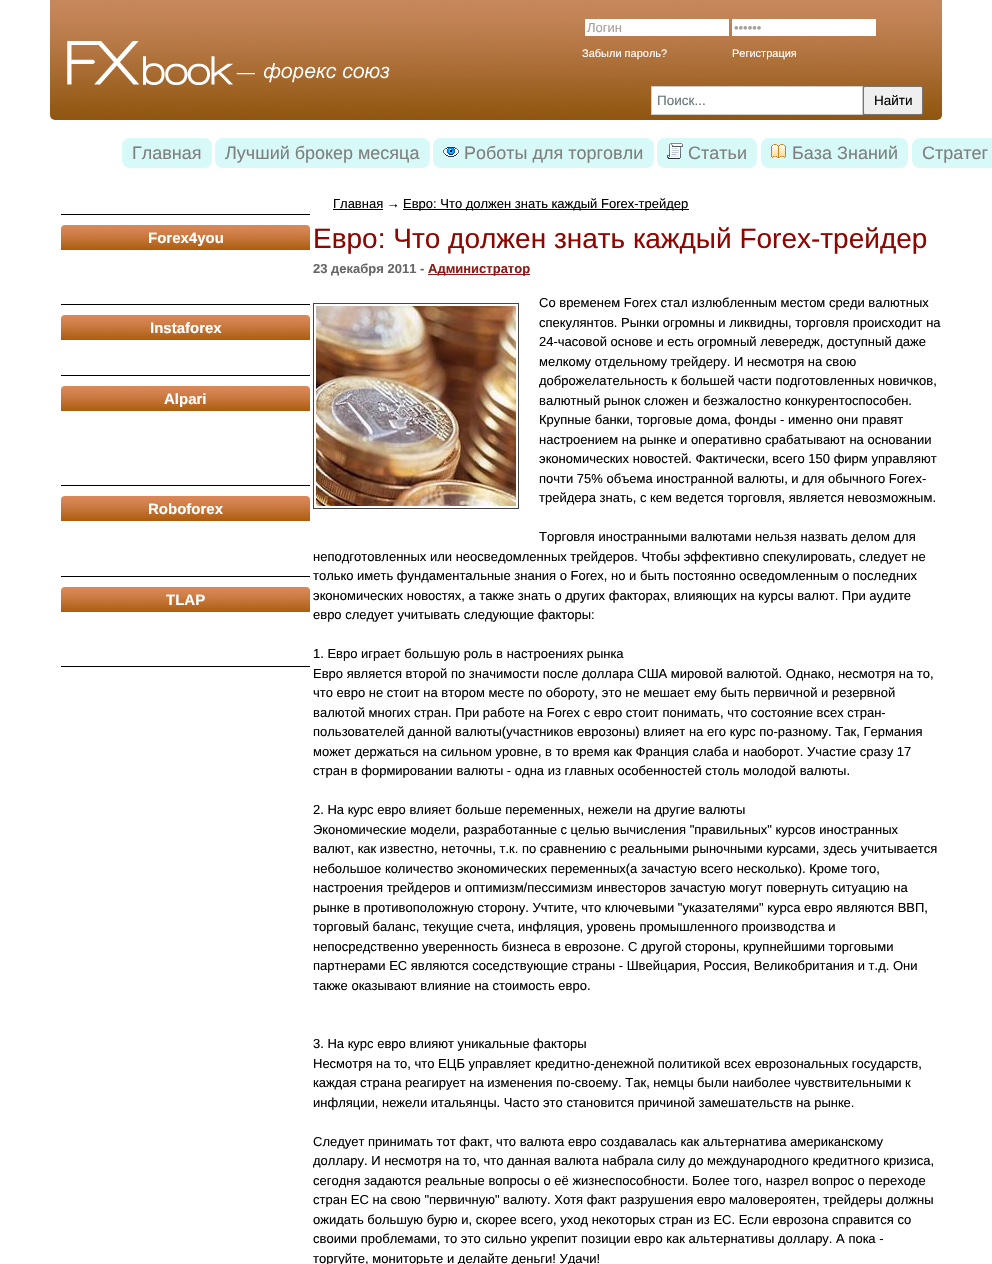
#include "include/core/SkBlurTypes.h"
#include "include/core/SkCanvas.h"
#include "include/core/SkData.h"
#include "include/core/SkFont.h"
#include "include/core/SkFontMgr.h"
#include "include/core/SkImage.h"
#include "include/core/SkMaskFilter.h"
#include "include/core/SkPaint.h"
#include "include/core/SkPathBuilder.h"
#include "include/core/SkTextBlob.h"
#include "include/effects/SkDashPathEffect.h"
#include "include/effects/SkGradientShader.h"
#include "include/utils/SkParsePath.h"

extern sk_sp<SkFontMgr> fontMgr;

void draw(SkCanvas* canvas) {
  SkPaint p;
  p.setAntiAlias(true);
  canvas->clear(SK_ColorWHITE);
  canvas->drawImageRect(SkImages::DeferredFromEncodedData(SkData::MakeFromFileName("images/1.png")), SkRect::MakeLTRB(50, 0, 942, 120), SkSamplingOptions());
  canvas->drawImageRect(SkImages::DeferredFromEncodedData(SkData::MakeFromFileName("images/2.png")), SkRect::MakeLTRB(67, 41, 390, 85), SkSamplingOptions());
  p.setColor(SK_ColorWHITE);
  canvas->drawRect(SkRect::MakeLTRB(585, 19, 729, 36), p);
  canvas->drawRect(SkRect::MakeLTRB(732, 19, 876, 36), p);
  canvas->drawRect(SkRect::MakeLTRB(651.5f, 86.5f, 862.5f, 114.5f), p);
  p.setStyle(SkPaint::kStroke_Style);
  p.setStrokeWidth(1);
  p.setColor(SkColorSetRGB(204, 204, 204));
  canvas->drawRect(SkRect::MakeLTRB(651.5f, 86.5f, 862.5f, 114.5f), p);
  p.setStyle(SkPaint::kFill_Style);
  p.setColor(SkColorSetRGB(239, 239, 239));
  canvas->drawRoundRect(SkRect::MakeLTRB(863.5f, 86.5f, 922.5f, 114.5f), 1.5f, 1.5f, p);
  p.setStyle(SkPaint::kStroke_Style);
  p.setColor(SkColorSetRGB(118, 118, 118));
  canvas->drawRoundRect(SkRect::MakeLTRB(863.5f, 86.5f, 922.5f, 114.5f), 1.5f, 1.5f, p);
  p.setStyle(SkPaint::kFill_Style);
  p.setColor(SkColorSetRGB(215, 249, 248));
  canvas->drawRoundRect(SkRect::MakeLTRB(122, 138, 212, 168), 8, 8, p);
  canvas->drawRoundRect(SkRect::MakeLTRB(215, 138, 430, 168), 8, 8, p);
  canvas->drawRoundRect(SkRect::MakeLTRB(433, 138, 654, 168), 8, 8, p);
  canvas->drawImageRect(SkImages::DeferredFromEncodedData(SkData::MakeFromFileName("images/3.png")), SkRect::MakeLTRB(443, 147, 459, 157), SkSamplingOptions());
  canvas->drawRoundRect(SkRect::MakeLTRB(657, 138, 757, 168), 8, 8, p);
  canvas->drawImageRect(SkImages::DeferredFromEncodedData(SkData::MakeFromFileName("images/4.png")), SkRect::MakeLTRB(667, 143, 683, 159), SkSamplingOptions());
  canvas->drawRoundRect(SkRect::MakeLTRB(761, 138, 908, 168), 8, 8, p);
  canvas->drawImageRect(SkImages::DeferredFromEncodedData(SkData::MakeFromFileName("images/5.png")), SkRect::MakeLTRB(771, 144, 786, 158), SkSamplingOptions());
  canvas->drawRoundRect(SkRect::MakeLTRB(912, 138, 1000, 168), 8, 8, p);
  p.setColor(SK_ColorBLACK);
  canvas->drawRect(SkRect::MakeLTRB(61, 214, 310, 215), p);
  canvas->drawImageRect(SkImages::DeferredFromEncodedData(SkData::MakeFromFileName("images/6.png")), SkRect::MakeLTRB(61, 225, 310, 250), SkSamplingOptions());
  canvas->drawRect(SkRect::MakeLTRB(61, 304, 310, 305), p);
  canvas->drawImageRect(SkImages::DeferredFromEncodedData(SkData::MakeFromFileName("images/6.png")), SkRect::MakeLTRB(61, 315, 310, 340), SkSamplingOptions());
  canvas->drawRect(SkRect::MakeLTRB(61, 375, 310, 376), p);
  canvas->drawImageRect(SkImages::DeferredFromEncodedData(SkData::MakeFromFileName("images/6.png")), SkRect::MakeLTRB(61, 386, 310, 411), SkSamplingOptions());
  canvas->drawRect(SkRect::MakeLTRB(61, 485, 310, 486), p);
  canvas->drawImageRect(SkImages::DeferredFromEncodedData(SkData::MakeFromFileName("images/6.png")), SkRect::MakeLTRB(61, 496, 310, 521), SkSamplingOptions());
  canvas->drawRect(SkRect::MakeLTRB(61, 576, 310, 577), p);
  canvas->drawImageRect(SkImages::DeferredFromEncodedData(SkData::MakeFromFileName("images/6.png")), SkRect::MakeLTRB(61, 587, 310, 612), SkSamplingOptions());
  canvas->drawRect(SkRect::MakeLTRB(61, 666, 310, 667), p);
  canvas->drawRect(SkRect::MakeLTRB(333, 209, 383, 210), p);
  canvas->drawRect(SkRect::MakeLTRB(403, 209, 689, 210), p);
  p.setColor(SkColorSetRGB(138, 26, 21));
  canvas->drawRect(SkRect::MakeLTRB(428, 274, 530, 275), p);
  p.setStyle(SkPaint::kStroke_Style);
  p.setColor(SkColorSetRGB(68, 68, 68));
  canvas->drawRect(SkRect::MakeLTRB(313.5f, 303.5f, 518.5f, 508.5f), p);
  canvas->drawImageRect(SkImages::DeferredFromEncodedData(SkData::MakeFromFileName("images/7.png")), SkRect::MakeLTRB(316, 306, 516, 506), SkSamplingOptions());
  SkFont font1(fontMgr->matchFamilyStyle("Liberation Sans", SkFontStyle::Normal()), 13);
  font1.setSubpixel(true);
  p.setStyle(SkPaint::kFill_Style);
  p.setColor(SkColorSetRGB(168, 157, 151));
  canvas->drawString("Логин", 587, 32, font1, p);
  canvas->drawString("••••••", 734, 32, font1, p);
  SkFont font2(fontMgr->matchFamilyStyle("Liberation Sans", SkFontStyle::Normal()), 11);
  font2.setSubpixel(true);
  p.setColor(SK_ColorWHITE);
  canvas->drawString("Забыли пароль?", 582, 57, font2, p);
  canvas->drawString("Регистрация", 732, 57, font2, p);
  SkFont font3(fontMgr->matchFamilyStyle("Liberation Sans", SkFontStyle::Normal()), 13.5f);
  font3.setSubpixel(true);
  p.setColor(SkColorSetRGB(103, 117, 119));
  canvas->drawString("Поиск...", 657, 105, font3, p);
  p.setColor(SK_ColorBLACK);
  canvas->drawString("Найти", 874, 105, font3, p);
  SkFont font4(fontMgr->matchFamilyStyle("Liberation Sans", SkFontStyle::Normal()), 18);
  font4.setSubpixel(true);
  p.setColor(SkColorSetRGB(127, 127, 127));
  canvas->drawString("Главная", 132, 159, font4, p);
  canvas->drawString("Лучший брокер месяца", 225, 159, font4, p);
  canvas->drawString("Роботы для торговли", 464, 159, font4, p);
  canvas->drawString("Статьи", 688, 159, font4, p);
  canvas->drawString("База Знаний", 792, 159, font4, p);
  canvas->drawString("Стратег", 922, 159, font4, p);
  SkFont font5(fontMgr->matchFamilyStyle("Liberation Sans", SkFontStyle::Bold()), 15);
  font5.setSubpixel(true);
  p.setColor(SK_ColorWHITE);
  canvas->drawString("Forex4you", 148, 243, font5, p);
  canvas->drawString("Instaforex", 150, 333, font5, p);
  canvas->drawString("Alpari", 164, 404, font5, p);
  canvas->drawString("Roboforex", 148, 514, font5, p);
  canvas->drawString("TLAP", 166, 605, font5, p);
  p.setColor(SK_ColorBLACK);
  canvas->drawString("Главная →", 333, 208, font1, p);
  canvas->drawString("Евро: Что должен знать каждый Forex-трейдер", 403, 208, font1, p);
  SkFont font6(fontMgr->matchFamilyStyle("Liberation Sans", SkFontStyle::Normal()), 28);
  font6.setSubpixel(true);
  p.setColor(SkColorSetRGB(143, 6, 0));
  canvas->drawString("Евро: Что должен знать каждый Forex-трейдер", 313, 248, font6, p);
  SkFont font7(fontMgr->matchFamilyStyle("Liberation Sans", SkFontStyle::Bold()), 13);
  font7.setSubpixel(true);
  p.setColor(SkColorSetRGB(102, 102, 102));
  canvas->drawString("23 декабря 2011 -", 313, 273, font7, p);
  p.setColor(SkColorSetRGB(138, 26, 21));
  canvas->drawString("Администратор", 428, 273, font7, p);
  p.setColor(SK_ColorBLACK);
  canvas->drawString("Со временем Forex стал излюбленным местом среди валютных", 539, 307, font1, p);
  canvas->drawString("спекулянтов. Рынки огромны и ликвидны, торговля происходит на", 539, 327, font1, p);
  canvas->drawString("24-часовой основе и есть огромный левередж, доступный даже", 539, 346, font1, p);
  canvas->drawString("мелкому отдельному трейдеру. И несмотря на свою", 539, 366, font1, p);
  canvas->drawString("доброжелательность к большей части подготовленных новичков,", 539, 385, font1, p);
  canvas->drawString("валютный рынок сложен и безжалостно конкурентоспособен.", 539, 405, font1, p);
  canvas->drawString("Крупные банки, торговые дома, фонды - именно они правят", 539, 424, font1, p);
  canvas->drawString("настроением на рынке и оперативно срабатывают на основании", 539, 444, font1, p);
  canvas->drawString("экономических новостей. Фактически, всего 150 фирм управляют", 539, 463, font1, p);
  canvas->drawString("почти 75% объема иностранной валюты, и для обычного Forex-", 539, 483, font1, p);
  canvas->drawString("трейдера знать, с кем ведется торговля, является невозможным.", 539, 502, font1, p);
  canvas->drawString("Торговля иностранными валютами нельзя назвать делом для", 539, 541, font1, p);
  canvas->drawString("неподготовленных или неосведомленных трейдеров. Чтобы эффективно спекулировать, следует не", 313, 561, font1, p);
  canvas->drawString("только иметь фундаментальные знания о Forex, но и быть постоянно осведомленным о последних", 313, 580, font1, p);
  canvas->drawString("экономических новостях, а также знать о других факторах, влияющих на курсы валют. При аудите", 313, 600, font1, p);
  canvas->drawString("евро следует учитывать следующие факторы:", 313, 619, font1, p);
  canvas->drawString("1. Евро играет большую роль в настроениях рынка", 313, 658, font1, p);
  canvas->drawString("Евро является второй по значимости после доллара США мировой валютой. Однако, несмотря на то,", 313, 678, font1, p);
  canvas->drawString("что евро не стоит на втором месте по обороту, это не мешает ему быть первичной и резервной", 313, 697, font1, p);
  canvas->drawString("валютой многих стран. При работе на Forex с евро стоит понимать, что состояние всех стран-", 313, 717, font1, p);
  canvas->drawString("пользователей данной валюты(участников еврозоны) влияет на его курс по-разному. Так, Германия", 313, 736, font1, p);
  canvas->drawString("может держаться на сильном уровне, в то время как Франция слаба и наоборот. Участие сразу 17", 313, 756, font1, p);
  canvas->drawString("стран в формировании валюты - одна из главных особенностей столь молодой валюты.", 313, 775, font1, p);
  canvas->drawString("2. На курс евро влияет больше переменных, нежели на другие валюты", 313, 814, font1, p);
  canvas->drawString("Экономические модели, разработанные с целью вычисления \"правильных\" курсов иностранных", 313, 834, font1, p);
  canvas->drawString("валют, как известно, неточны, т.к. по сравнению с реальными рыночными курсами, здесь учитывается", 313, 853, font1, p);
  canvas->drawString("небольшое количество экономических переменных(а зачастую всего несколько). Кроме того,", 313, 873, font1, p);
  canvas->drawString("настроения трейдеров и оптимизм/пессимизм инвесторов зачастую могут повернуть ситуацию на", 313, 892, font1, p);
  canvas->drawString("рынке в противоположную сторону. Учтите, что ключевыми \"указателями\" курса евро являются ВВП,", 313, 912, font1, p);
  canvas->drawString("торговый баланс, текущие счета, инфляция, уровень промышленного производства и", 313, 931, font1, p);
  canvas->drawString("непосредственно уверенность бизнеса в еврозоне. С другой стороны, крупнейшими торговыми", 313, 951, font1, p);
  canvas->drawString("партнерами ЕС являются соседствующие страны - Швейцария, Россия, Великобритания и т.д. Они", 313, 970, font1, p);
  canvas->drawString("также оказывают влияние на стоимость евро.", 313, 990, font1, p);
  canvas->drawString("3. На курс евро влияют уникальные факторы", 313, 1048, font1, p);
  canvas->drawString("Несмотря на то, что ЕЦБ управляет кредитно-денежной политикой всех еврозональных государств,", 313, 1068, font1, p);
  canvas->drawString("каждая страна реагирует на изменения по-своему. Так, немцы были наиболее чувствительными к", 313, 1087, font1, p);
  canvas->drawString("инфляции, нежели итальянцы. Часто это становится причиной замешательств на рынке.", 313, 1107, font1, p);
  canvas->drawString("Следует принимать тот факт, что валюта евро создавалась как альтернатива американскому", 313, 1146, font1, p);
  canvas->drawString("доллару. И несмотря на то, что данная валюта набрала силу до международного кредитного кризиса,", 313, 1165, font1, p);
  canvas->drawString("сегодня задаются реальные вопросы о её жизнеспособности. Более того, назрел вопрос о переходе", 313, 1185, font1, p);
  canvas->drawString("стран ЕС на свою \"первичную\" валюту. Хотя факт разрушения евро маловероятен, трейдеры должны", 313, 1204, font1, p);
  canvas->drawString("ожидать большую бурю и, скорее всего, уход некоторых стран из ЕС. Если еврозона справится со", 313, 1224, font1, p);
  canvas->drawString("своими проблемами, то это сильно укрепит позиции евро как альтернативы доллару. А пока -", 313, 1243, font1, p);
  canvas->drawString("торгуйте, мониторьте и делайте деньги! Удачи!", 313, 1263, font1, p);
}
